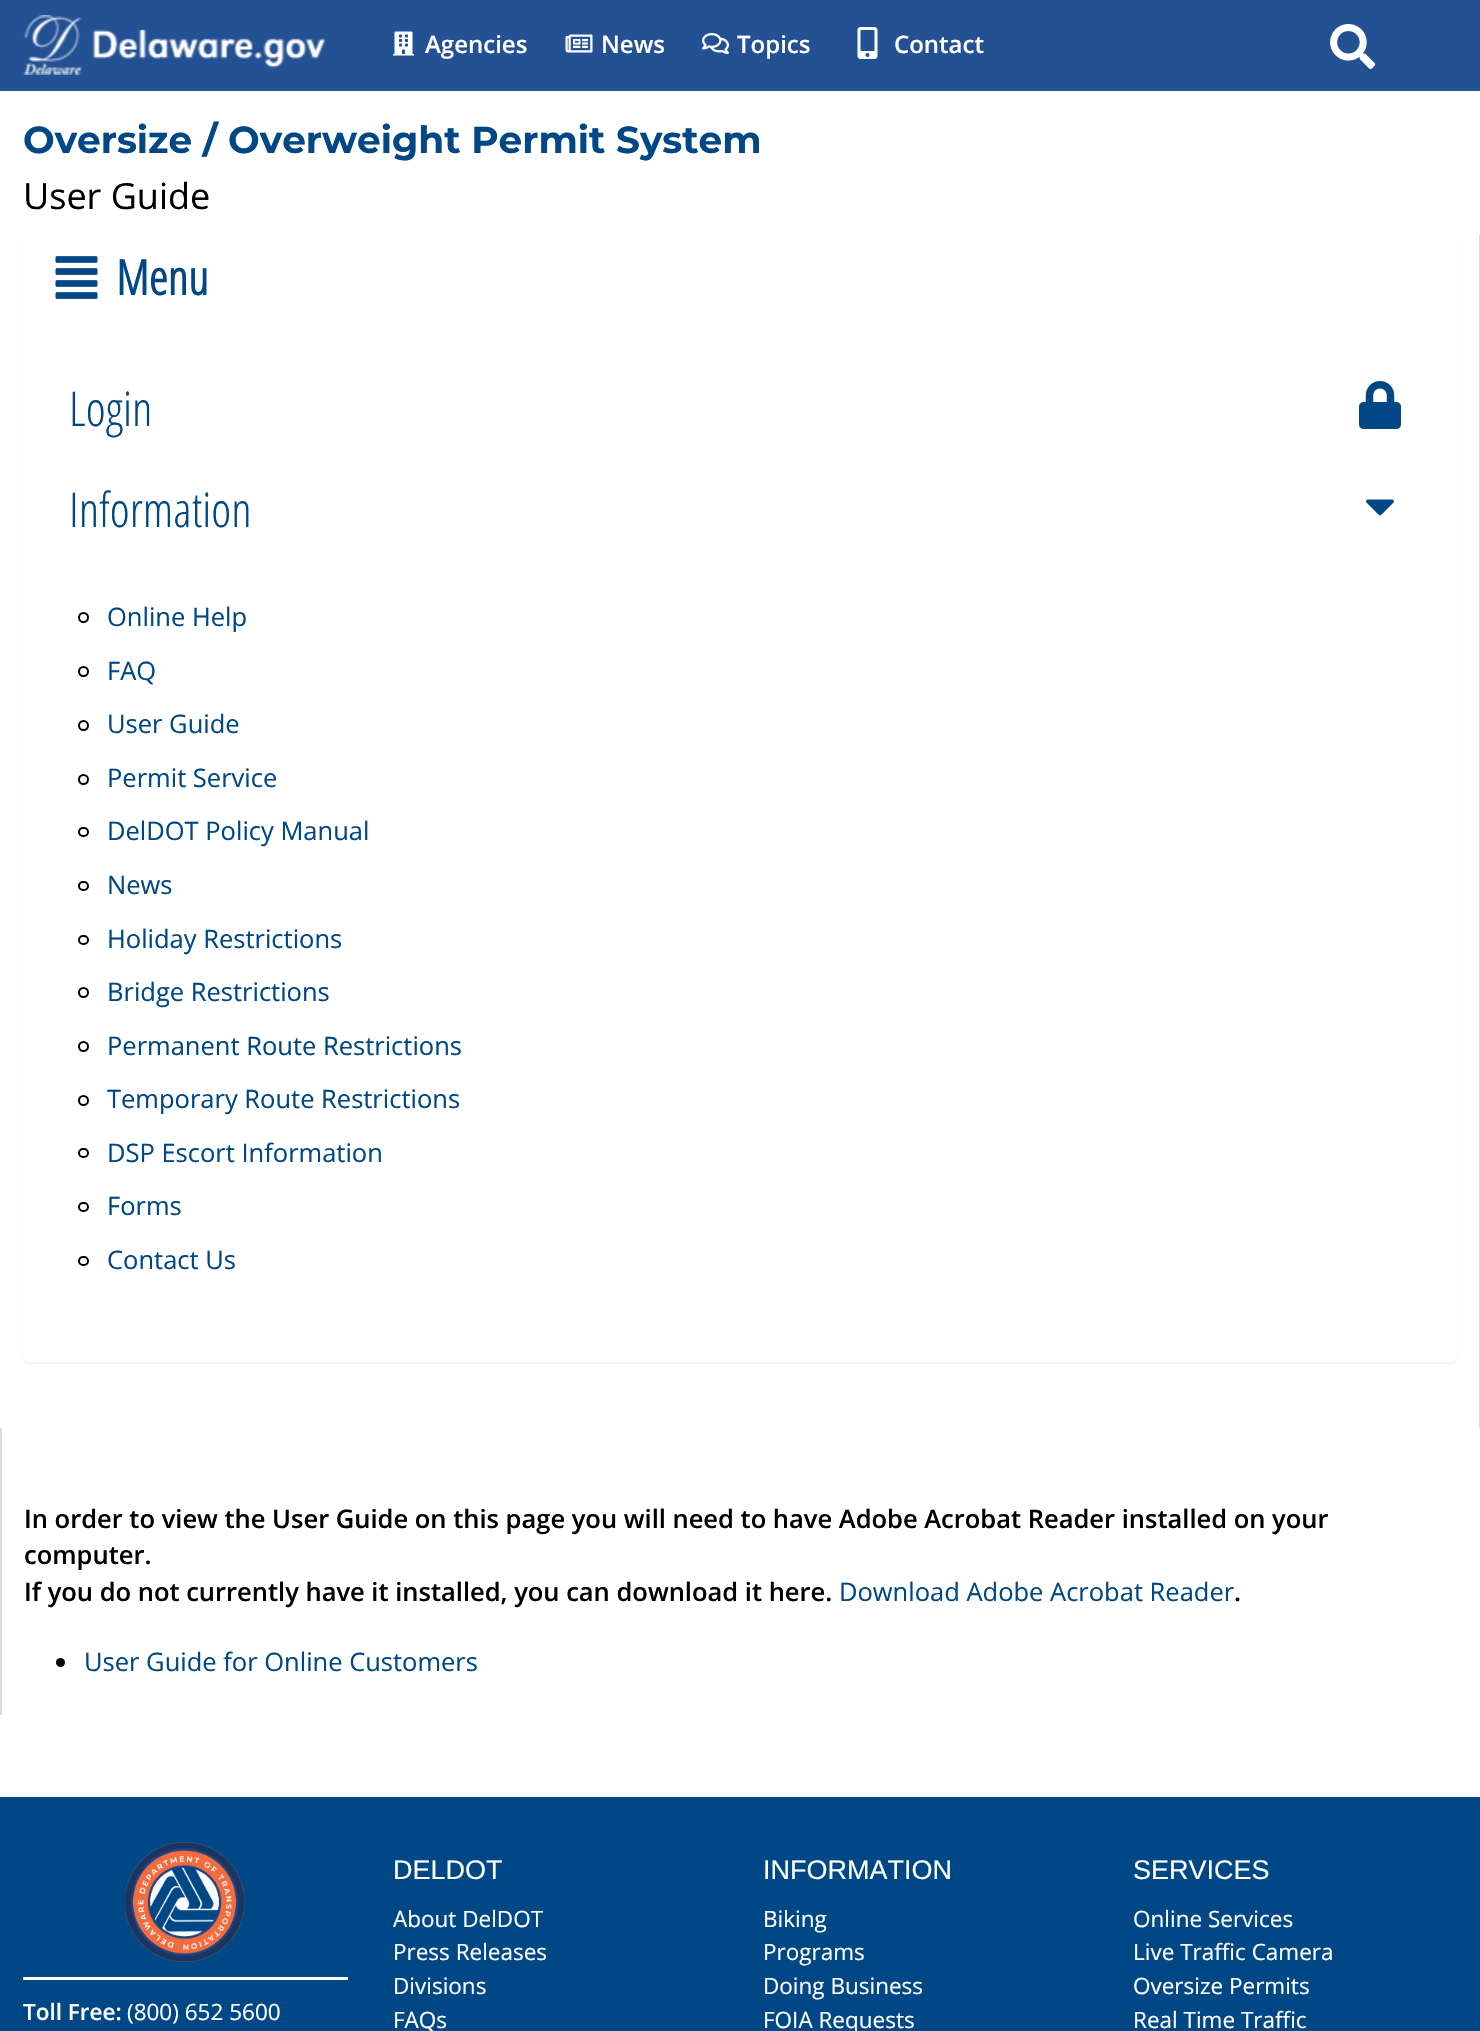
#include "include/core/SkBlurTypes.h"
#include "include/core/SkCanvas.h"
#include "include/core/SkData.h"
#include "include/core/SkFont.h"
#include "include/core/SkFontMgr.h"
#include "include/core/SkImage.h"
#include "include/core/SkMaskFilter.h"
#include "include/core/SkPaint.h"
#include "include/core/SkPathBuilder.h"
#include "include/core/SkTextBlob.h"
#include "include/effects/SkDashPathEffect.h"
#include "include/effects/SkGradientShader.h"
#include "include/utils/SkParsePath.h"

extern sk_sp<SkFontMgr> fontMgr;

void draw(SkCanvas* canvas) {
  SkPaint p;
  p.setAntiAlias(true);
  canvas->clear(SK_ColorWHITE);
  p.setColor(SkColorSetRGB(36, 81, 148));
  canvas->drawRect(SkRect::MakeLTRB(0, 0, 1480, 91), p);
  canvas->drawImageRect(SkImages::DeferredFromEncodedData(SkData::MakeFromFileName("images/1.png")), SkRect::MakeLTRB(23, 15, 82, 75), SkSamplingOptions());
  canvas->drawImageRect(SkImages::DeferredFromEncodedData(SkData::MakeFromFileName("images/2.png")), SkRect::MakeLTRB(92, 29, 326, 68), SkSamplingOptions());
  canvas->drawImageRect(SkImages::DeferredFromEncodedData(SkData::MakeFromFileName("images/3.png")), SkRect::MakeLTRB(393, 31, 414, 56), SkSamplingOptions());
  canvas->drawImageRect(SkImages::DeferredFromEncodedData(SkData::MakeFromFileName("images/4.png")), SkRect::MakeLTRB(565, 34, 593, 53), SkSamplingOptions());
  canvas->drawImageRect(SkImages::DeferredFromEncodedData(SkData::MakeFromFileName("images/5.png")), SkRect::MakeLTRB(702, 33, 729, 54), SkSamplingOptions());
  canvas->drawImageRect(SkImages::DeferredFromEncodedData(SkData::MakeFromFileName("images/6.png")), SkRect::MakeLTRB(857, 27, 878, 59), SkSamplingOptions());
  canvas->drawImageRect(SkImages::DeferredFromEncodedData(SkData::MakeFromFileName("images/7.png")), SkRect::MakeLTRB(1330, 24, 1376, 69), SkSamplingOptions());
  p.setColor(SkColorSetRGB(221, 221, 221));
  canvas->drawRect(SkRect::MakeLTRB(1479, 234, 1480, 1428), p);
  p.setColor(SkColorSetARGB(13, 0, 0, 0));
  p.setMaskFilter(SkMaskFilter::MakeBlur(kNormal_SkBlurStyle, 1));
  canvas->drawRoundRect(SkRect::MakeLTRB(23, 236, 1457, 1364), 6, 6, p);
  p.setMaskFilter(nullptr);
  p.setColor(SK_ColorWHITE);
  canvas->drawRoundRect(SkRect::MakeLTRB(23, 234, 1457, 1362), 6, 6, p);
  canvas->drawImageRect(SkImages::DeferredFromEncodedData(SkData::MakeFromFileName("images/8.png")), SkRect::MakeLTRB(55, 256, 98, 299), SkSamplingOptions());
  canvas->drawImageRect(SkImages::DeferredFromEncodedData(SkData::MakeFromFileName("images/9.png")), SkRect::MakeLTRB(1359, 381, 1401, 429), SkSamplingOptions());
  canvas->drawImageRect(SkImages::DeferredFromEncodedData(SkData::MakeFromFileName("images/10.png")), SkRect::MakeLTRB(1366, 499, 1394, 516), SkSamplingOptions());
  p.setStyle(SkPaint::kStroke_Style);
  p.setStrokeWidth(2);
  p.setColor(SK_ColorBLACK);
  canvas->drawCircle(83.5f, 617.5f, 4.5f, p);
  canvas->drawCircle(83.5f, 671.5f, 4.5f, p);
  canvas->drawCircle(83.5f, 725.5f, 4.5f, p);
  canvas->drawCircle(83.5f, 779.5f, 4.5f, p);
  canvas->drawRoundRect(SkRect::MakeLTRB(79, 828, 88, 836), 4, 4, p);
  canvas->drawRoundRect(SkRect::MakeLTRB(79, 882, 88, 890), 4, 4, p);
  canvas->drawRoundRect(SkRect::MakeLTRB(79, 936, 88, 944), 4, 4, p);
  canvas->drawCircle(83.5f, 992.5f, 4.5f, p);
  canvas->drawCircle(83.5f, 1046.5f, 4.5f, p);
  canvas->drawCircle(83.5f, 1100.5f, 4.5f, p);
  canvas->drawRoundRect(SkRect::MakeLTRB(79, 1149, 88, 1157), 4, 4, p);
  canvas->drawRoundRect(SkRect::MakeLTRB(79, 1203, 88, 1211), 4, 4, p);
  canvas->drawRoundRect(SkRect::MakeLTRB(79, 1257, 88, 1265), 4, 4, p);
  p.setStyle(SkPaint::kFill_Style);
  p.setColor(SkColorSetRGB(221, 221, 221));
  canvas->drawRect(SkRect::MakeLTRB(0, 1428, 2, 1715), p);
  p.setColor(SK_ColorBLACK);
  canvas->drawCircle(60.5f, 1662.5f, 4.5f, p);
  p.setColor(SkColorSetRGB(0, 71, 133));
  canvas->drawRect(SkRect::MakeLTRB(0, 1797, 1480, 2031), p);
  canvas->drawImageRect(SkImages::DeferredFromEncodedData(SkData::MakeFromFileName("images/11.png")), SkRect::MakeLTRB(124, 1842, 245, 1962), SkSamplingOptions());
  p.setColor(SK_ColorWHITE);
  canvas->drawRect(SkRect::MakeLTRB(23, 1977, 348, 1980), p);
  SkFont font1(fontMgr->matchFamilyStyle("Open Sans", SkFontStyle(600, SkFontStyle::kNormal_Width, SkFontStyle::kUpright_Slant)), 24);
  font1.setSubpixel(true);
  canvas->drawString("Agencies", 425, 53, font1, p);
  canvas->drawString("News", 601, 53, font1, p);
  canvas->drawString("Topics", 737, 53, font1, p);
  canvas->drawString("Contact", 894, 53, font1, p);
  SkFont font2(fontMgr->matchFamilyStyle("Montserrat", SkFontStyle::Bold()), 37.5f);
  font2.setSubpixel(true);
  p.setColor(SkColorSetRGB(0, 71, 133));
  canvas->drawString("Oversize / Overweight Permit System", 23, 153, font2, p);
  SkFont font3(fontMgr->matchFamilyStyle("Open Sans", SkFontStyle::Normal()), 36);
  font3.setSubpixel(true);
  p.setColor(SK_ColorBLACK);
  canvas->drawString("User Guide", 23, 209, font3, p);
  SkFont font4(fontMgr->matchFamilyStyle("Open Sans Condensed", SkFontStyle::Bold()), 48);
  font4.setSubpixel(true);
  p.setColor(SkColorSetRGB(0, 71, 133));
  canvas->drawString("Menu", 116, 295, font4, p);
  SkFont font5(fontMgr->matchFamilyStyle("Open Sans Condensed", SkFontStyle(300, SkFontStyle::kNormal_Width, SkFontStyle::kUpright_Slant)), 48);
  font5.setSubpixel(true);
  canvas->drawString("Login", 69, 426, font5, p);
  canvas->drawString("Information", 69, 527, font5, p);
  SkFont font6(fontMgr->matchFamilyStyle("Open Sans", SkFontStyle::Normal()), 25.5f);
  font6.setSubpixel(true);
  canvas->drawString("Online Help", 107, 626, font6, p);
  canvas->drawString("FAQ", 107, 680, font6, p);
  canvas->drawString("User Guide", 107, 733, font6, p);
  canvas->drawString("Permit Service", 107, 787, font6, p);
  canvas->drawString("DelDOT Policy Manual", 107, 840, font6, p);
  canvas->drawString("News", 107, 894, font6, p);
  canvas->drawString("Holiday Restrictions", 107, 948, font6, p);
  canvas->drawString("Bridge Restrictions", 107, 1001, font6, p);
  canvas->drawString("Permanent Route Restrictions", 107, 1055, font6, p);
  canvas->drawString("Temporary Route Restrictions", 107, 1108, font6, p);
  canvas->drawString("DSP Escort Information", 107, 1162, font6, p);
  canvas->drawString("Forms", 107, 1215, font6, p);
  canvas->drawString("Contact Us", 107, 1269, font6, p);
  SkFont font7(fontMgr->matchFamilyStyle("Open Sans", SkFontStyle(600, SkFontStyle::kNormal_Width, SkFontStyle::kUpright_Slant)), 25.5f);
  font7.setSubpixel(true);
  p.setColor(SK_ColorBLACK);
  canvas->drawString("In order to view the User Guide on this page you will need to have Adobe Acrobat Reader installed on your", 24, 1528, font7, p);
  canvas->drawString("computer.", 24, 1564, font7, p);
  canvas->drawString("If you do not currently have it installed, you can download it here.", 24, 1601, font7, p);
  p.setColor(SkColorSetRGB(0, 71, 133));
  canvas->drawString("Download Adobe Acrobat Reader", 839, 1601, font6, p);
  p.setColor(SK_ColorBLACK);
  canvas->drawString(".", 1234, 1601, font7, p);
  p.setColor(SkColorSetRGB(0, 71, 133));
  canvas->drawString("User Guide for Online Customers", 84, 1671, font6, p);
  SkFont font8(fontMgr->matchFamilyStyle("Open Sans", SkFontStyle(600, SkFontStyle::kNormal_Width, SkFontStyle::kUpright_Slant)), 22.5f);
  font8.setSubpixel(true);
  p.setColor(SK_ColorWHITE);
  canvas->drawString("Toll Free:", 23, 2020, font8, p);
  SkFont font9(fontMgr->matchFamilyStyle("Open Sans", SkFontStyle::Normal()), 22.5f);
  font9.setSubpixel(true);
  canvas->drawString("(800) 652 5600", 127, 2020, font9, p);
  SkFont font10(fontMgr->matchFamilyStyle("Liberation Sans", SkFontStyle::Normal()), 27);
  font10.setSubpixel(true);
  canvas->drawString("DELDOT", 393, 1879, font10, p);
  canvas->drawString("About DelDOT", 393, 1927, font9, p);
  canvas->drawString("Press Releases", 393, 1960, font9, p);
  canvas->drawString("Divisions", 393, 1994, font9, p);
  canvas->drawString("FAQs", 393, 2028, font9, p);
  canvas->drawString("INFORMATION", 763, 1879, font10, p);
  canvas->drawString("Biking", 763, 1927, font9, p);
  canvas->drawString("Programs", 763, 1960, font9, p);
  canvas->drawString("Doing Business", 763, 1994, font9, p);
  canvas->drawString("FOIA Requests", 763, 2028, font9, p);
  canvas->drawString("SERVICES", 1133, 1879, font10, p);
  canvas->drawString("Online Services", 1133, 1927, font9, p);
  canvas->drawString("Live Traffic Camera", 1133, 1960, font9, p);
  canvas->drawString("Oversize Permits", 1133, 1994, font9, p);
  canvas->drawString("Real Time Traffic", 1133, 2028, font9, p);
}
